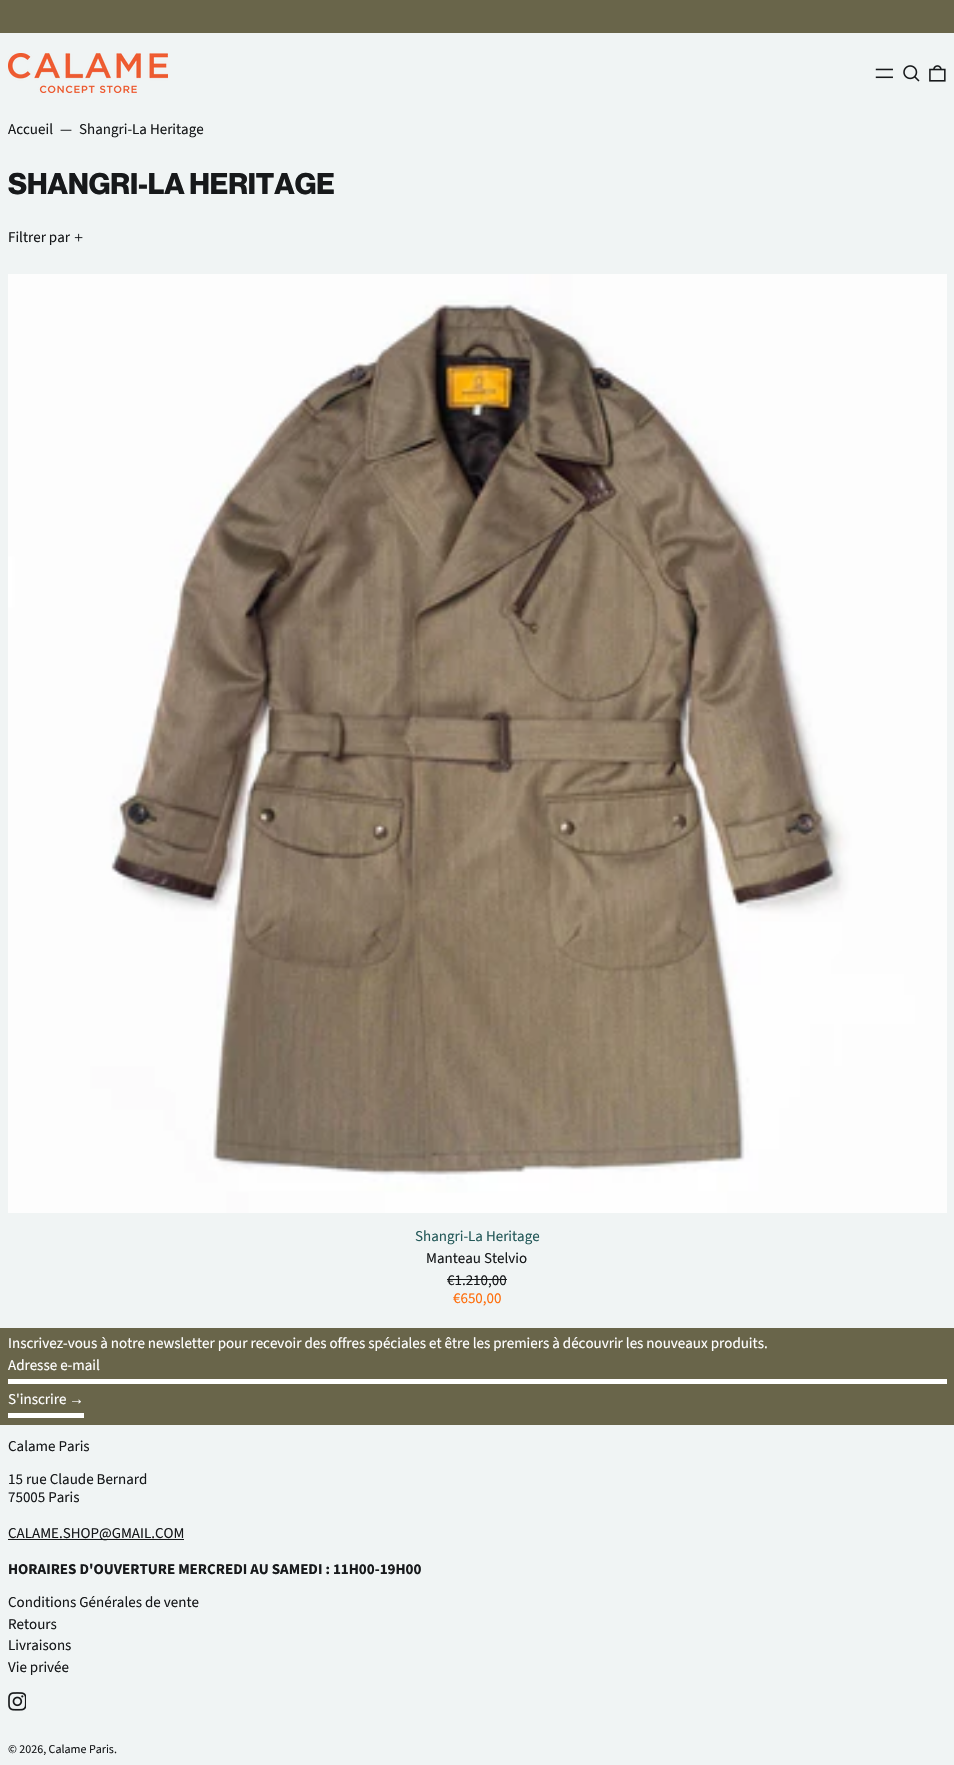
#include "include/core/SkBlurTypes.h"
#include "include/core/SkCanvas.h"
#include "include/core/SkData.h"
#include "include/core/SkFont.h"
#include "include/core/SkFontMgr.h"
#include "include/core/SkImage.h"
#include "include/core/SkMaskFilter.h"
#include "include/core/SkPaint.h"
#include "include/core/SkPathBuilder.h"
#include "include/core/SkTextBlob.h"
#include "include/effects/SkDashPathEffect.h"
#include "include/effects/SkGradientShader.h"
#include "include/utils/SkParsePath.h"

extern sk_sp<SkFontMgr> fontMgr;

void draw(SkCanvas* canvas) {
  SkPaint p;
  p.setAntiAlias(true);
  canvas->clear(SkColorSetRGB(240, 244, 244));
  p.setColor(SkColorSetRGB(105, 101, 74));
  canvas->drawRect(SkRect::MakeLTRB(0, 0, 954, 33), p);
  canvas->drawImageRect(SkImages::DeferredFromEncodedData(SkData::MakeFromFileName("images/1.png")), SkRect::MakeLTRB(8, 53, 168, 93), SkSamplingOptions());
  canvas->drawImageRect(SkImages::DeferredFromEncodedData(SkData::MakeFromFileName("images/2.png")), SkRect::MakeLTRB(875, 68, 893, 79), SkSamplingOptions());
  canvas->drawImageRect(SkImages::DeferredFromEncodedData(SkData::MakeFromFileName("images/3.png")), SkRect::MakeLTRB(903, 65, 920, 82), SkSamplingOptions());
  canvas->drawImageRect(SkImages::DeferredFromEncodedData(SkData::MakeFromFileName("images/4.png")), SkRect::MakeLTRB(929, 65, 946, 82), SkSamplingOptions());
  canvas->drawImageRect(SkImages::DeferredFromEncodedData(SkData::MakeFromFileName("images/5.png")), SkRect::MakeLTRB(74, 233, 83, 242), SkSamplingOptions());
  canvas->drawImageRect(SkImages::DeferredFromEncodedData(SkData::MakeFromFileName("images/6.png")), SkRect::MakeLTRB(8, 274, 947, 1213), SkSamplingOptions());
  p.setColor(SkColorSetRGB(23, 25, 27));
  canvas->drawRect(SkRect::MakeLTRB(447, 1279, 507, 1280), p);
  p.setColor(SkColorSetRGB(105, 101, 74));
  canvas->drawRect(SkRect::MakeLTRB(0, 1328, 954, 1425), p);
  p.setColor(SK_ColorWHITE);
  canvas->drawRect(SkRect::MakeLTRB(8, 1379, 947, 1384), p);
  canvas->drawRect(SkRect::MakeLTRB(8, 1413, 84, 1418), p);
  p.setColor(SkColorSetRGB(23, 25, 27));
  canvas->drawRect(SkRect::MakeLTRB(8, 1539, 184, 1540), p);
  canvas->drawImageRect(SkImages::DeferredFromEncodedData(SkData::MakeFromFileName("images/7.png")), SkRect::MakeLTRB(8, 1692, 26, 1711), SkSamplingOptions());
  SkFont font1(fontMgr->matchFamilyStyle("Source Sans Pro", SkFontStyle::Normal()), 15);
  font1.setSubpixel(true);
  canvas->drawString("Accueil", 8, 134, font1, p);
  canvas->drawString("—", 60, 134, font1, p);
  canvas->drawString("Shangri-La Heritage", 79, 134, font1, p);
  SkFont font2(fontMgr->matchFamilyStyle("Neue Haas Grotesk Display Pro", SkFontStyle::Bold()), 29.25f);
  font2.setSubpixel(true);
  canvas->drawString("SHANGRI-LA HERITAGE", 8, 194, font2, p);
  canvas->drawString("Filtrer par", 8, 242, font1, p);
  p.setColor(SkColorSetRGB(36, 89, 89));
  canvas->drawString("Shangri-La Heritage", 415, 1241, font1, p);
  p.setColor(SkColorSetRGB(23, 25, 27));
  canvas->drawString("Manteau Stelvio", 426, 1263, font1, p);
  canvas->drawString("€1.210,00", 447, 1285, font1, p);
  p.setColor(SkColorSetRGB(255, 109, 10));
  canvas->drawString("€650,00", 453, 1303, font1, p);
  p.setColor(SK_ColorWHITE);
  canvas->drawString("Inscrivez-vous à notre newsletter pour recevoir des offres spéciales et être les premiers à découvrir les nouveaux produits.", 8, 1348, font1, p);
  canvas->drawString("Adresse e-mail", 8, 1370, font1, p);
  canvas->drawString("S'inscrire", 8, 1404, font1, p);
  SkFont font3(fontMgr->matchFamilyStyle("Liberation Sans", SkFontStyle::Normal()), 15);
  font3.setSubpixel(true);
  canvas->drawString("→", 69, 1404, font3, p);
  p.setColor(SkColorSetRGB(23, 25, 27));
  canvas->drawString("Calame Paris", 8, 1451, font1, p);
  canvas->drawString("15 rue Claude Bernard", 8, 1484, font1, p);
  canvas->drawString("75005 Paris", 8, 1502, font1, p);
  canvas->drawString("CALAME.SHOP@GMAIL.COM", 8, 1538, font1, p);
  SkFont font4(fontMgr->matchFamilyStyle("Source Sans Pro", SkFontStyle::Bold()), 15);
  font4.setSubpixel(true);
  canvas->drawString("HORAIRES D'OUVERTURE MERCREDI AU SAMEDI : 11H00-19H00", 8, 1574, font4, p);
  canvas->drawString("Conditions Générales de vente", 8, 1607, font1, p);
  canvas->drawString("Retours", 8, 1629, font1, p);
  canvas->drawString("Livraisons", 8, 1650, font1, p);
  canvas->drawString("Vie privée", 8, 1672, font1, p);
  SkFont font5(fontMgr->matchFamilyStyle("Source Sans Pro", SkFontStyle::Normal()), 12);
  font5.setSubpixel(true);
  canvas->drawString("© 2026, Calame Paris.", 8, 1753, font5, p);
}
